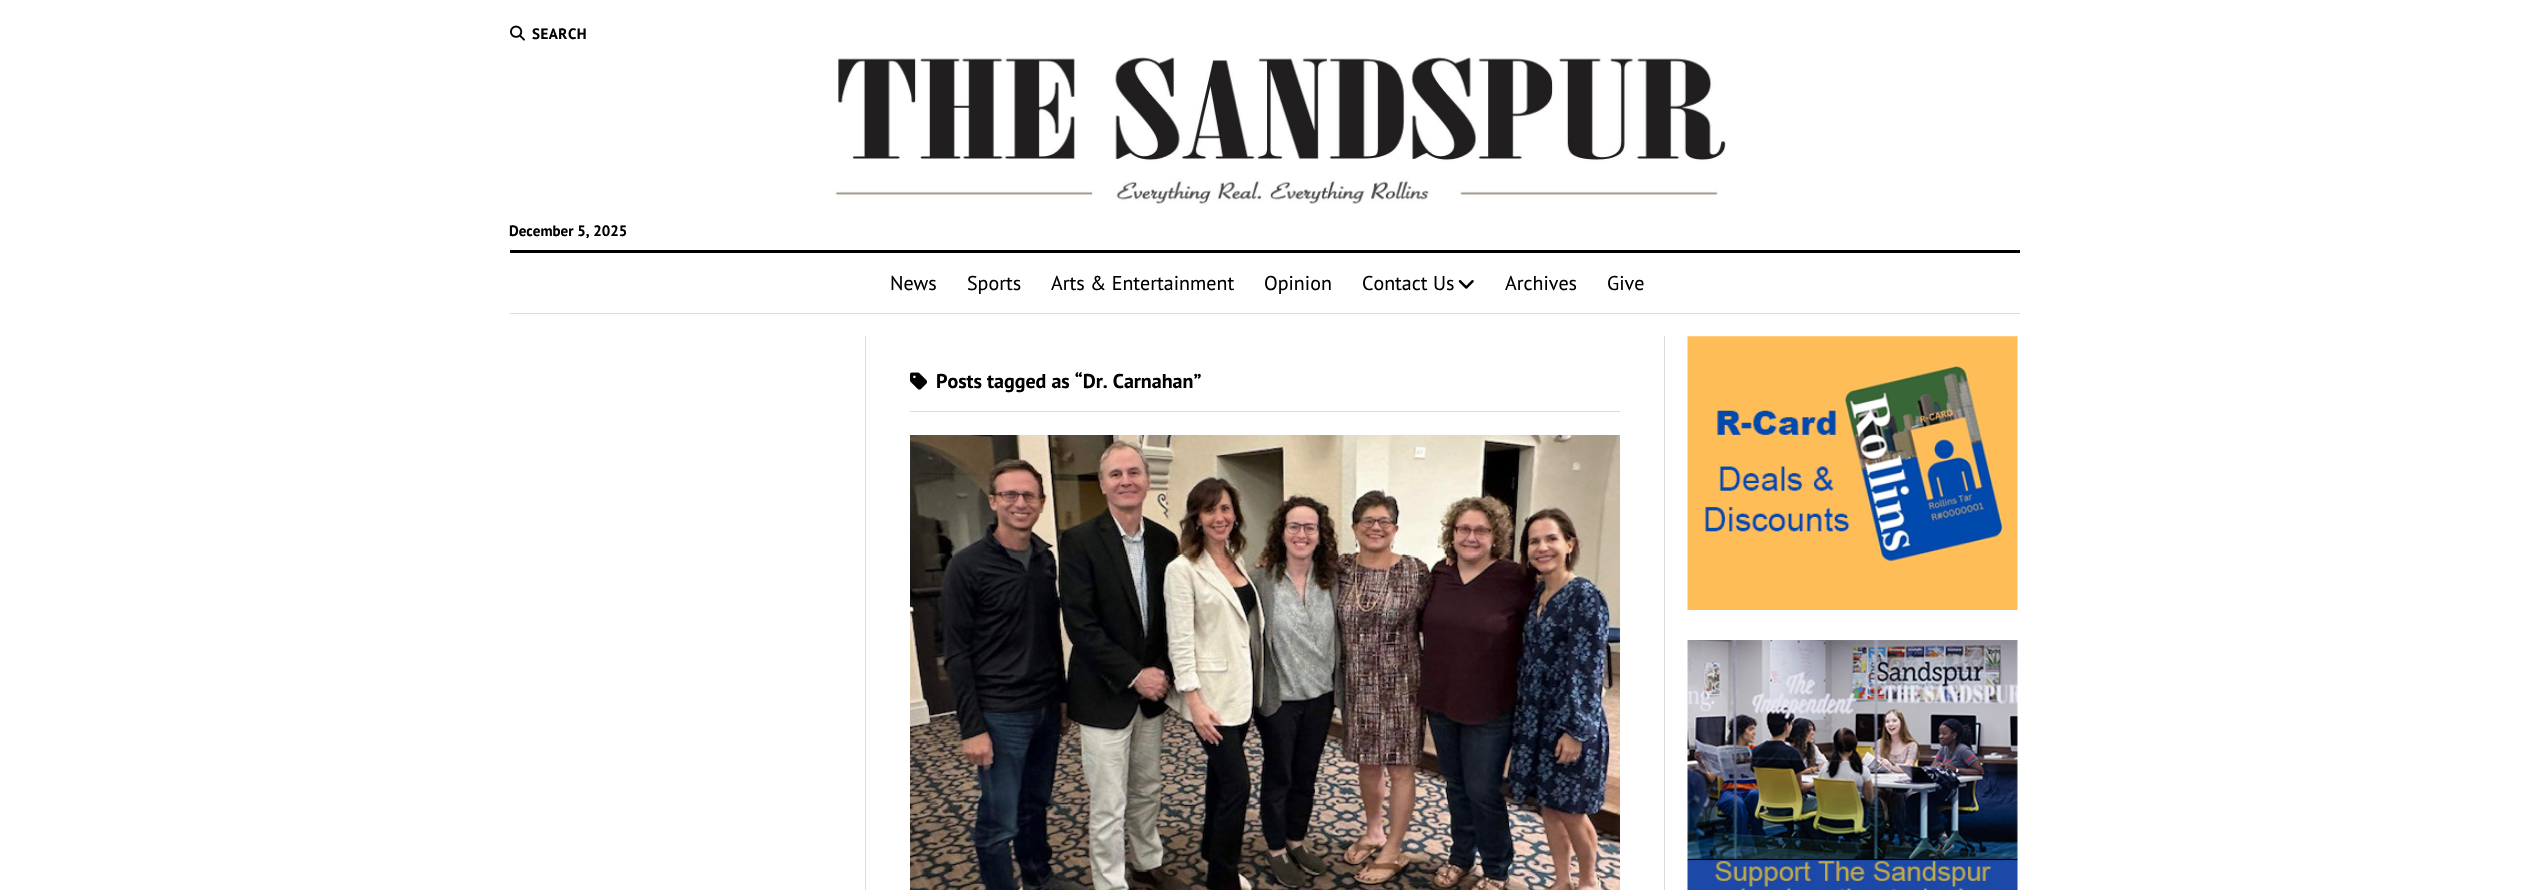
#include "include/core/SkBlurTypes.h"
#include "include/core/SkCanvas.h"
#include "include/core/SkData.h"
#include "include/core/SkFont.h"
#include "include/core/SkFontMgr.h"
#include "include/core/SkImage.h"
#include "include/core/SkMaskFilter.h"
#include "include/core/SkPaint.h"
#include "include/core/SkPathBuilder.h"
#include "include/core/SkTextBlob.h"
#include "include/effects/SkDashPathEffect.h"
#include "include/effects/SkGradientShader.h"
#include "include/utils/SkParsePath.h"

extern sk_sp<SkFontMgr> fontMgr;

void draw(SkCanvas* canvas) {
  SkPaint p;
  p.setAntiAlias(true);
  auto spacedText = [&](const char* s, float x, float y, const SkFont& font, const SkPaint& ink, float letter, float word) {
    std::vector<SkGlyphID> glyphs(font.countText(s, strlen(s), SkTextEncoding::kUTF8));
    std::vector<float> xs(glyphs.size());
    font.textToGlyphs(s, strlen(s), SkTextEncoding::kUTF8, glyphs);
    font.getXPos(glyphs, xs, x);
    float extra = 0;
    for (size_t i = 0; i < glyphs.size(); i++) {
      xs[i] += extra;
      extra += letter + word * (glyphs[i] == font.unicharToGlyph(' '));
    }
    canvas->drawTextBlob(SkTextBlob::MakeFromPosHGlyphs(glyphs, xs, y, font), 0, 0, ink);
  };
  canvas->clear(SK_ColorWHITE);
  canvas->drawImageRect(SkImages::DeferredFromEncodedData(SkData::MakeFromFileName("images/1.png")), SkRect::MakeLTRB(510, 25, 525, 41), SkSamplingOptions());
  canvas->drawImageRect(SkImages::DeferredFromEncodedData(SkData::MakeFromFileName("images/2.png")), SkRect::MakeLTRB(835, 57, 1726, 204), SkSamplingOptions());
  p.setColor(SK_ColorBLACK);
  canvas->drawRect(SkRect::MakeLTRB(510, 250, 2020, 253), p);
  p.setColor(SkColorSetRGB(220, 220, 220));
  canvas->drawRect(SkRect::MakeLTRB(510, 313, 2020, 314), p);
  canvas->drawImageRect(SkImages::DeferredFromEncodedData(SkData::MakeFromFileName("images/3.png")), SkRect::MakeLTRB(1458, 280, 1474, 289), SkSamplingOptions());
  canvas->drawRect(SkRect::MakeLTRB(865, 336, 866, 890), p);
  canvas->drawRect(SkRect::MakeLTRB(910, 411, 1620, 412), p);
  canvas->drawImageRect(SkImages::DeferredFromEncodedData(SkData::MakeFromFileName("images/4.png")), SkRect::MakeLTRB(910, 372, 927, 390), SkSamplingOptions());
  canvas->drawImageRect(SkImages::DeferredFromEncodedData(SkData::MakeFromFileName("images/5.png")), SkRect::MakeLTRB(910, 435, 1620, 890), SkSamplingOptions());
  canvas->drawImageRect(SkImages::DeferredFromEncodedData(SkData::MakeFromFileName("images/6.png")), SkRect::MakeLTRB(1687, 336, 2018, 610), SkSamplingOptions());
  canvas->drawImageRect(SkImages::DeferredFromEncodedData(SkData::MakeFromFileName("images/7.png")), SkRect::MakeLTRB(1687, 640, 2018, 890), SkSamplingOptions());
  canvas->drawRect(SkRect::MakeLTRB(1664, 336, 1665, 890), p);
  SkFont font1(fontMgr->matchFamilyStyle("PT Sans", SkFontStyle::Bold()), 15);
  font1.setSubpixel(true);
  p.setColor(SK_ColorBLACK);
  spacedText("SEARCH", 532, 39, font1, p, 0.5f, 0);
  canvas->drawString("December 5, 2025", 509, 236, font1, p);
  SkFont font2(fontMgr->matchFamilyStyle("PT Sans", SkFontStyle::Normal()), 20);
  font2.setSubpixel(true);
  canvas->drawString("News", 890, 290, font2, p);
  canvas->drawString("Sports", 967, 290, font2, p);
  canvas->drawString("Arts & Entertainment", 1051, 290, font2, p);
  canvas->drawString("Opinion", 1264, 290, font2, p);
  canvas->drawString("Contact Us", 1362, 290, font2, p);
  canvas->drawString("Archives", 1505, 290, font2, p);
  canvas->drawString("Give", 1607, 290, font2, p);
  SkFont font3(fontMgr->matchFamilyStyle("PT Sans", SkFontStyle::Bold()), 20);
  font3.setSubpixel(true);
  canvas->drawString("Posts tagged as “Dr. Carnahan”", 936, 388, font3, p);
}
